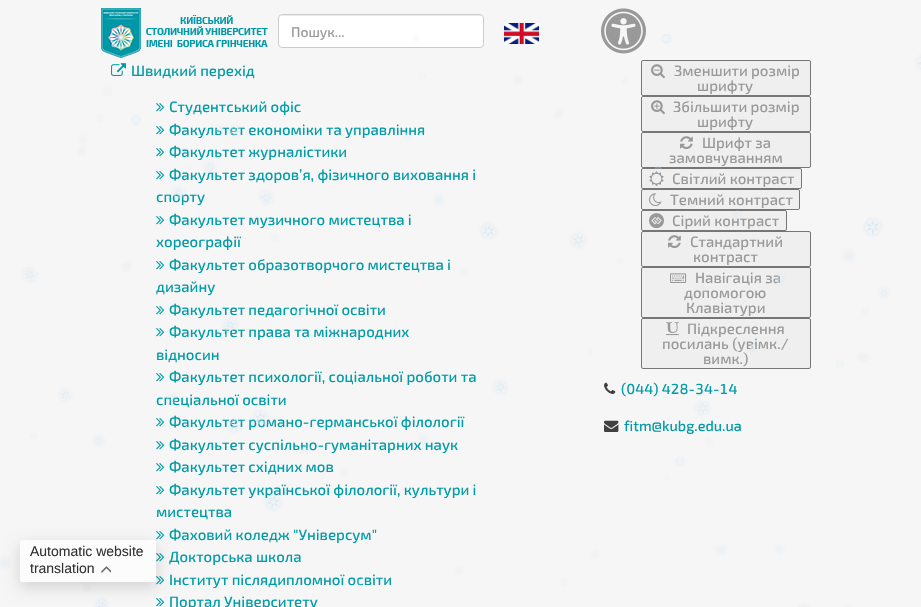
#include "include/core/SkBlurTypes.h"
#include "include/core/SkCanvas.h"
#include "include/core/SkData.h"
#include "include/core/SkFont.h"
#include "include/core/SkFontMgr.h"
#include "include/core/SkImage.h"
#include "include/core/SkMaskFilter.h"
#include "include/core/SkPaint.h"
#include "include/core/SkPathBuilder.h"
#include "include/core/SkTextBlob.h"
#include "include/effects/SkDashPathEffect.h"
#include "include/effects/SkGradientShader.h"
#include "include/utils/SkParsePath.h"

extern sk_sp<SkFontMgr> fontMgr;

void draw(SkCanvas* canvas) {
  SkPaint p;
  p.setAntiAlias(true);
  canvas->clear(SkColorSetRGB(246, 246, 246));
  canvas->drawImageRect(SkImages::DeferredFromEncodedData(SkData::MakeFromFileName("images/2.png")), SkRect::MakeLTRB(101, 8, 268, 58), SkSamplingOptions());
  p.setColor(SK_ColorWHITE);
  canvas->drawRoundRect(SkRect::MakeLTRB(278, 14, 484, 48), 4, 4, p);
  p.setColor(SkColorSetRGB(236, 236, 236));
  canvas->drawPath(SkPathBuilder().moveTo(282, 16).lineTo(480, 16).cubicTo(482, 16, 483, 17, 483, 19).cubicTo(483, 17, 482, 15, 480, 15).lineTo(282, 15).cubicTo(280, 15, 279, 17, 279, 19).cubicTo(279, 17, 280, 16, 282, 16).close().detach(), p);
  p.setStyle(SkPaint::kStroke_Style);
  p.setStrokeWidth(1);
  p.setColor(SkColorSetRGB(204, 204, 204));
  canvas->drawRoundRect(SkRect::MakeLTRB(278.5f, 14.5f, 483.5f, 47.5f), 3.5f, 3.5f, p);
  canvas->drawImageRect(SkImages::DeferredFromEncodedData(SkData::MakeFromFileName("images/3.png")), SkRect::MakeLTRB(504, 23, 539, 44), SkSamplingOptions());
  canvas->drawImageRect(SkImages::DeferredFromEncodedData(SkData::MakeFromFileName("images/4.png")), SkRect::MakeLTRB(111, 63, 126, 76), SkSamplingOptions());
  canvas->drawImageRect(SkImages::DeferredFromEncodedData(SkData::MakeFromFileName("images/5.png")), SkRect::MakeLTRB(156, 103, 165, 112), SkSamplingOptions());
  canvas->drawImageRect(SkImages::DeferredFromEncodedData(SkData::MakeFromFileName("images/5.png")), SkRect::MakeLTRB(156, 126, 165, 135), SkSamplingOptions());
  canvas->drawImageRect(SkImages::DeferredFromEncodedData(SkData::MakeFromFileName("images/5.png")), SkRect::MakeLTRB(156, 148, 165, 157), SkSamplingOptions());
  canvas->drawImageRect(SkImages::DeferredFromEncodedData(SkData::MakeFromFileName("images/5.png")), SkRect::MakeLTRB(156, 171, 165, 180), SkSamplingOptions());
  canvas->drawImageRect(SkImages::DeferredFromEncodedData(SkData::MakeFromFileName("images/5.png")), SkRect::MakeLTRB(156, 216, 165, 225), SkSamplingOptions());
  canvas->drawImageRect(SkImages::DeferredFromEncodedData(SkData::MakeFromFileName("images/5.png")), SkRect::MakeLTRB(156, 261, 165, 270), SkSamplingOptions());
  canvas->drawImageRect(SkImages::DeferredFromEncodedData(SkData::MakeFromFileName("images/5.png")), SkRect::MakeLTRB(156, 306, 165, 315), SkSamplingOptions());
  canvas->drawImageRect(SkImages::DeferredFromEncodedData(SkData::MakeFromFileName("images/5.png")), SkRect::MakeLTRB(156, 328, 165, 337), SkSamplingOptions());
  canvas->drawImageRect(SkImages::DeferredFromEncodedData(SkData::MakeFromFileName("images/5.png")), SkRect::MakeLTRB(156, 373, 165, 382), SkSamplingOptions());
  canvas->drawImageRect(SkImages::DeferredFromEncodedData(SkData::MakeFromFileName("images/5.png")), SkRect::MakeLTRB(156, 418, 165, 427), SkSamplingOptions());
  canvas->drawImageRect(SkImages::DeferredFromEncodedData(SkData::MakeFromFileName("images/5.png")), SkRect::MakeLTRB(156, 441, 165, 450), SkSamplingOptions());
  canvas->drawImageRect(SkImages::DeferredFromEncodedData(SkData::MakeFromFileName("images/5.png")), SkRect::MakeLTRB(156, 463, 165, 472), SkSamplingOptions());
  canvas->drawImageRect(SkImages::DeferredFromEncodedData(SkData::MakeFromFileName("images/5.png")), SkRect::MakeLTRB(156, 486, 165, 495), SkSamplingOptions());
  canvas->drawImageRect(SkImages::DeferredFromEncodedData(SkData::MakeFromFileName("images/5.png")), SkRect::MakeLTRB(156, 531, 165, 540), SkSamplingOptions());
  canvas->drawImageRect(SkImages::DeferredFromEncodedData(SkData::MakeFromFileName("images/5.png")), SkRect::MakeLTRB(156, 553, 165, 562), SkSamplingOptions());
  canvas->drawImageRect(SkImages::DeferredFromEncodedData(SkData::MakeFromFileName("images/5.png")), SkRect::MakeLTRB(156, 576, 165, 585), SkSamplingOptions());
  canvas->drawImageRect(SkImages::DeferredFromEncodedData(SkData::MakeFromFileName("images/5.png")), SkRect::MakeLTRB(156, 598, 165, 607), SkSamplingOptions());
  canvas->drawImageRect(SkImages::DeferredFromEncodedData(SkData::MakeFromFileName("images/6.png")), SkRect::MakeLTRB(601, 8, 646, 54), SkSamplingOptions());
  p.setStyle(SkPaint::kFill_Style);
  p.setColor(SkColorSetRGB(239, 239, 239));
  canvas->drawRoundRect(SkRect::MakeLTRB(641.5f, 60.5f, 810.5f, 95.5f), 1.5f, 1.5f, p);
  p.setStyle(SkPaint::kStroke_Style);
  p.setColor(SkColorSetRGB(118, 118, 118));
  canvas->drawRoundRect(SkRect::MakeLTRB(641.5f, 60.5f, 810.5f, 95.5f), 1.5f, 1.5f, p);
  canvas->drawImageRect(SkImages::DeferredFromEncodedData(SkData::MakeFromFileName("images/7.png")), SkRect::MakeLTRB(651, 64, 665, 79), SkSamplingOptions());
  p.setStyle(SkPaint::kFill_Style);
  p.setColor(SkColorSetRGB(239, 239, 239));
  canvas->drawRoundRect(SkRect::MakeLTRB(641.5f, 96.5f, 810.5f, 131.5f), 1.5f, 1.5f, p);
  p.setStyle(SkPaint::kStroke_Style);
  p.setColor(SkColorSetRGB(118, 118, 118));
  canvas->drawRoundRect(SkRect::MakeLTRB(641.5f, 96.5f, 810.5f, 131.5f), 1.5f, 1.5f, p);
  canvas->drawImageRect(SkImages::DeferredFromEncodedData(SkData::MakeFromFileName("images/8.png")), SkRect::MakeLTRB(651, 100, 665, 115), SkSamplingOptions());
  p.setStyle(SkPaint::kFill_Style);
  p.setColor(SkColorSetRGB(239, 239, 239));
  canvas->drawRoundRect(SkRect::MakeLTRB(641.5f, 132.5f, 810.5f, 167.5f), 1.5f, 1.5f, p);
  p.setStyle(SkPaint::kStroke_Style);
  p.setColor(SkColorSetRGB(118, 118, 118));
  canvas->drawRoundRect(SkRect::MakeLTRB(641.5f, 132.5f, 810.5f, 167.5f), 1.5f, 1.5f, p);
  canvas->drawImageRect(SkImages::DeferredFromEncodedData(SkData::MakeFromFileName("images/9.png")), SkRect::MakeLTRB(680, 136, 693, 150), SkSamplingOptions());
  p.setStyle(SkPaint::kFill_Style);
  p.setColor(SkColorSetRGB(239, 239, 239));
  canvas->drawRoundRect(SkRect::MakeLTRB(641.5f, 168.5f, 801.5f, 188.5f), 1.5f, 1.5f, p);
  p.setStyle(SkPaint::kStroke_Style);
  p.setColor(SkColorSetRGB(118, 118, 118));
  canvas->drawRoundRect(SkRect::MakeLTRB(641.5f, 168.5f, 801.5f, 188.5f), 1.5f, 1.5f, p);
  canvas->drawImageRect(SkImages::DeferredFromEncodedData(SkData::MakeFromFileName("images/10.png")), SkRect::MakeLTRB(649, 171, 664, 186), SkSamplingOptions());
  p.setStyle(SkPaint::kFill_Style);
  p.setColor(SkColorSetRGB(239, 239, 239));
  canvas->drawRoundRect(SkRect::MakeLTRB(641.5f, 189.5f, 799.5f, 209.5f), 1.5f, 1.5f, p);
  p.setStyle(SkPaint::kStroke_Style);
  p.setColor(SkColorSetRGB(118, 118, 118));
  canvas->drawRoundRect(SkRect::MakeLTRB(641.5f, 189.5f, 799.5f, 209.5f), 1.5f, 1.5f, p);
  canvas->drawImageRect(SkImages::DeferredFromEncodedData(SkData::MakeFromFileName("images/11.png")), SkRect::MakeLTRB(649, 193, 662, 206), SkSamplingOptions());
  p.setStyle(SkPaint::kFill_Style);
  p.setColor(SkColorSetRGB(239, 239, 239));
  canvas->drawRoundRect(SkRect::MakeLTRB(641.5f, 210.5f, 786.5f, 230.5f), 1.5f, 1.5f, p);
  p.setStyle(SkPaint::kStroke_Style);
  p.setColor(SkColorSetRGB(118, 118, 118));
  canvas->drawRoundRect(SkRect::MakeLTRB(641.5f, 210.5f, 786.5f, 230.5f), 1.5f, 1.5f, p);
  canvas->drawImageRect(SkImages::DeferredFromEncodedData(SkData::MakeFromFileName("images/12.png")), SkRect::MakeLTRB(649, 213, 664, 229), SkSamplingOptions());
  p.setStyle(SkPaint::kFill_Style);
  p.setColor(SkColorSetRGB(239, 239, 239));
  canvas->drawRoundRect(SkRect::MakeLTRB(641.5f, 231.5f, 810.5f, 266.5f), 1.5f, 1.5f, p);
  p.setStyle(SkPaint::kStroke_Style);
  p.setColor(SkColorSetRGB(118, 118, 118));
  canvas->drawRoundRect(SkRect::MakeLTRB(641.5f, 231.5f, 810.5f, 266.5f), 1.5f, 1.5f, p);
  canvas->drawImageRect(SkImages::DeferredFromEncodedData(SkData::MakeFromFileName("images/9.png")), SkRect::MakeLTRB(668, 235, 681, 249), SkSamplingOptions());
  p.setStyle(SkPaint::kFill_Style);
  p.setColor(SkColorSetRGB(239, 239, 239));
  canvas->drawRoundRect(SkRect::MakeLTRB(641.5f, 267.5f, 810.5f, 317.5f), 1.5f, 1.5f, p);
  p.setStyle(SkPaint::kStroke_Style);
  p.setColor(SkColorSetRGB(118, 118, 118));
  canvas->drawRoundRect(SkRect::MakeLTRB(641.5f, 267.5f, 810.5f, 317.5f), 1.5f, 1.5f, p);
  canvas->drawImageRect(SkImages::DeferredFromEncodedData(SkData::MakeFromFileName("images/13.png")), SkRect::MakeLTRB(670, 273, 687, 283), SkSamplingOptions());
  p.setStyle(SkPaint::kFill_Style);
  p.setColor(SkColorSetRGB(239, 239, 239));
  canvas->drawRoundRect(SkRect::MakeLTRB(641.5f, 318.5f, 810.5f, 368.5f), 1.5f, 1.5f, p);
  p.setStyle(SkPaint::kStroke_Style);
  p.setColor(SkColorSetRGB(118, 118, 118));
  canvas->drawRoundRect(SkRect::MakeLTRB(641.5f, 318.5f, 810.5f, 368.5f), 1.5f, 1.5f, p);
  canvas->drawImageRect(SkImages::DeferredFromEncodedData(SkData::MakeFromFileName("images/14.png")), SkRect::MakeLTRB(666, 322, 679, 336), SkSamplingOptions());
  canvas->drawImageRect(SkImages::DeferredFromEncodedData(SkData::MakeFromFileName("images/15.png")), SkRect::MakeLTRB(604, 382, 616, 394), SkSamplingOptions());
  canvas->drawImageRect(SkImages::DeferredFromEncodedData(SkData::MakeFromFileName("images/16.png")), SkRect::MakeLTRB(604, 420, 619, 432), SkSamplingOptions());
  SkFont font1(fontMgr->matchFamilyStyle("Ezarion", SkFontStyle(500, SkFontStyle::kNormal_Width, SkFontStyle::kUpright_Slant)), 14);
  font1.setSubpixel(true);
  p.setStyle(SkPaint::kFill_Style);
  p.setColor(SkColorSetRGB(153, 153, 153));
  canvas->drawString("Пошук...", 291, 37, font1, p);
  SkFont font2(fontMgr->matchFamilyStyle("Ezarion", SkFontStyle(500, SkFontStyle::kNormal_Width, SkFontStyle::kUpright_Slant)), 15);
  font2.setSubpixel(true);
  p.setColor(SkColorSetRGB(0, 156, 167));
  canvas->drawString("Швидкий перехід", 131, 76, font2, p);
  canvas->drawString("Студентський офіс", 169, 112, font2, p);
  canvas->drawString("Факультет економіки та управління", 169, 135, font2, p);
  canvas->drawString("Факультет журналістики", 169, 157, font2, p);
  canvas->drawString("Факультет здоров’я, фізичного виховання і", 169, 180, font2, p);
  canvas->drawString("спорту", 156, 202, font2, p);
  canvas->drawString("Факультет музичного мистецтва і", 169, 225, font2, p);
  canvas->drawString("хореографії", 156, 247, font2, p);
  canvas->drawString("Факультет образотворчого мистецтва і", 169, 270, font2, p);
  canvas->drawString("дизайну", 156, 292, font2, p);
  canvas->drawString("Факультет педагогічної освіти", 169, 315, font2, p);
  canvas->drawString("Факультет права та міжнародних", 169, 337, font2, p);
  canvas->drawString("відносин", 156, 360, font2, p);
  canvas->drawString("Факультет психології, соціальної роботи та", 169, 382, font2, p);
  canvas->drawString("спеціальної освіти", 156, 405, font2, p);
  canvas->drawString("Факультет романо-германської філології", 169, 427, font2, p);
  canvas->drawString("Факультет суспільно-гуманітарних наук", 169, 450, font2, p);
  canvas->drawString("Факультет східних мов", 169, 472, font2, p);
  canvas->drawString("Факультет української філології, культури і", 169, 495, font2, p);
  canvas->drawString("мистецтва", 156, 517, font2, p);
  canvas->drawString("Фаховий коледж \"Універсум\"", 169, 540, font2, p);
  canvas->drawString("Докторська школа", 169, 562, font2, p);
  canvas->drawString("Інститут післядипломної освіти", 169, 585, font2, p);
  canvas->drawString("Портал Університету", 169, 607, font2, p);
  p.setColor(SkColorSetRGB(153, 153, 153));
  canvas->drawString("Зменшити розмір", 674, 76, font2, p);
  canvas->drawString("шрифту", 697, 91, font2, p);
  canvas->drawString("Збільшити розмір", 673, 112, font2, p);
  canvas->drawString("шрифту", 697, 127, font2, p);
  canvas->drawString("Шрифт за", 702, 148, font2, p);
  canvas->drawString("замовчуванням", 669, 163, font2, p);
  canvas->drawString("Світлий контраст", 672, 184, font2, p);
  canvas->drawString("Темний контраст", 670, 205, font2, p);
  canvas->drawString("Сірий контраст", 672, 226, font2, p);
  canvas->drawString("Стандартний", 690, 247, font2, p);
  canvas->drawString("контраст", 693, 262, font2, p);
  canvas->drawString("Навігація за", 695, 283, font2, p);
  canvas->drawString("допомогою", 684, 298, font2, p);
  canvas->drawString("Клавіатури", 686, 313, font2, p);
  canvas->drawString("Підкреслення", 687, 334, font2, p);
  canvas->drawString("посилань (увімк./", 662, 349, font2, p);
  canvas->drawString("вимк.)", 703, 364, font2, p);
  SkFont font3(fontMgr->matchFamilyStyle("Ezarion", SkFontStyle(500, SkFontStyle::kNormal_Width, SkFontStyle::kUpright_Slant)), 14.5f);
  font3.setSubpixel(true);
  p.setColor(SkColorSetRGB(0, 156, 167));
  canvas->drawString("(044) 428-34-14", 621, 394, font3, p);
  canvas->drawString("fitm@kubg.edu.ua", 624, 431, font3, p);
  canvas->drawImageRect(SkImages::DeferredFromEncodedData(SkData::MakeFromFileName("images/17.png")), SkRect::MakeLTRB(0, 34, 921, 607), SkSamplingOptions());
  p.setColor(SkColorSetARGB(38, 0, 0, 0));
  p.setMaskFilter(SkMaskFilter::MakeBlur(kNormal_SkBlurStyle, 7.5f));
  canvas->drawRoundRect(SkRect::MakeLTRB(20, 545, 156, 587), 2, 2, p);
  p.setMaskFilter(nullptr);
  p.setColor(SkColorSetRGB(252, 252, 252));
  canvas->drawRoundRect(SkRect::MakeLTRB(20, 540, 156, 582), 2, 2, p);
  canvas->drawImageRect(SkImages::DeferredFromEncodedData(SkData::MakeFromFileName("images/1.png")), SkRect::MakeLTRB(101, 566, 111, 573), SkSamplingOptions());
  SkFont font4(fontMgr->matchFamilyStyle("Liberation Sans", SkFontStyle::Normal()), 14);
  font4.setSubpixel(true);
  p.setColor(SkColorSetRGB(51, 51, 51));
  canvas->drawString("translation", 30, 573, font4, p);
  canvas->drawString("Automatic website", 30, 556, font4, p);
}
